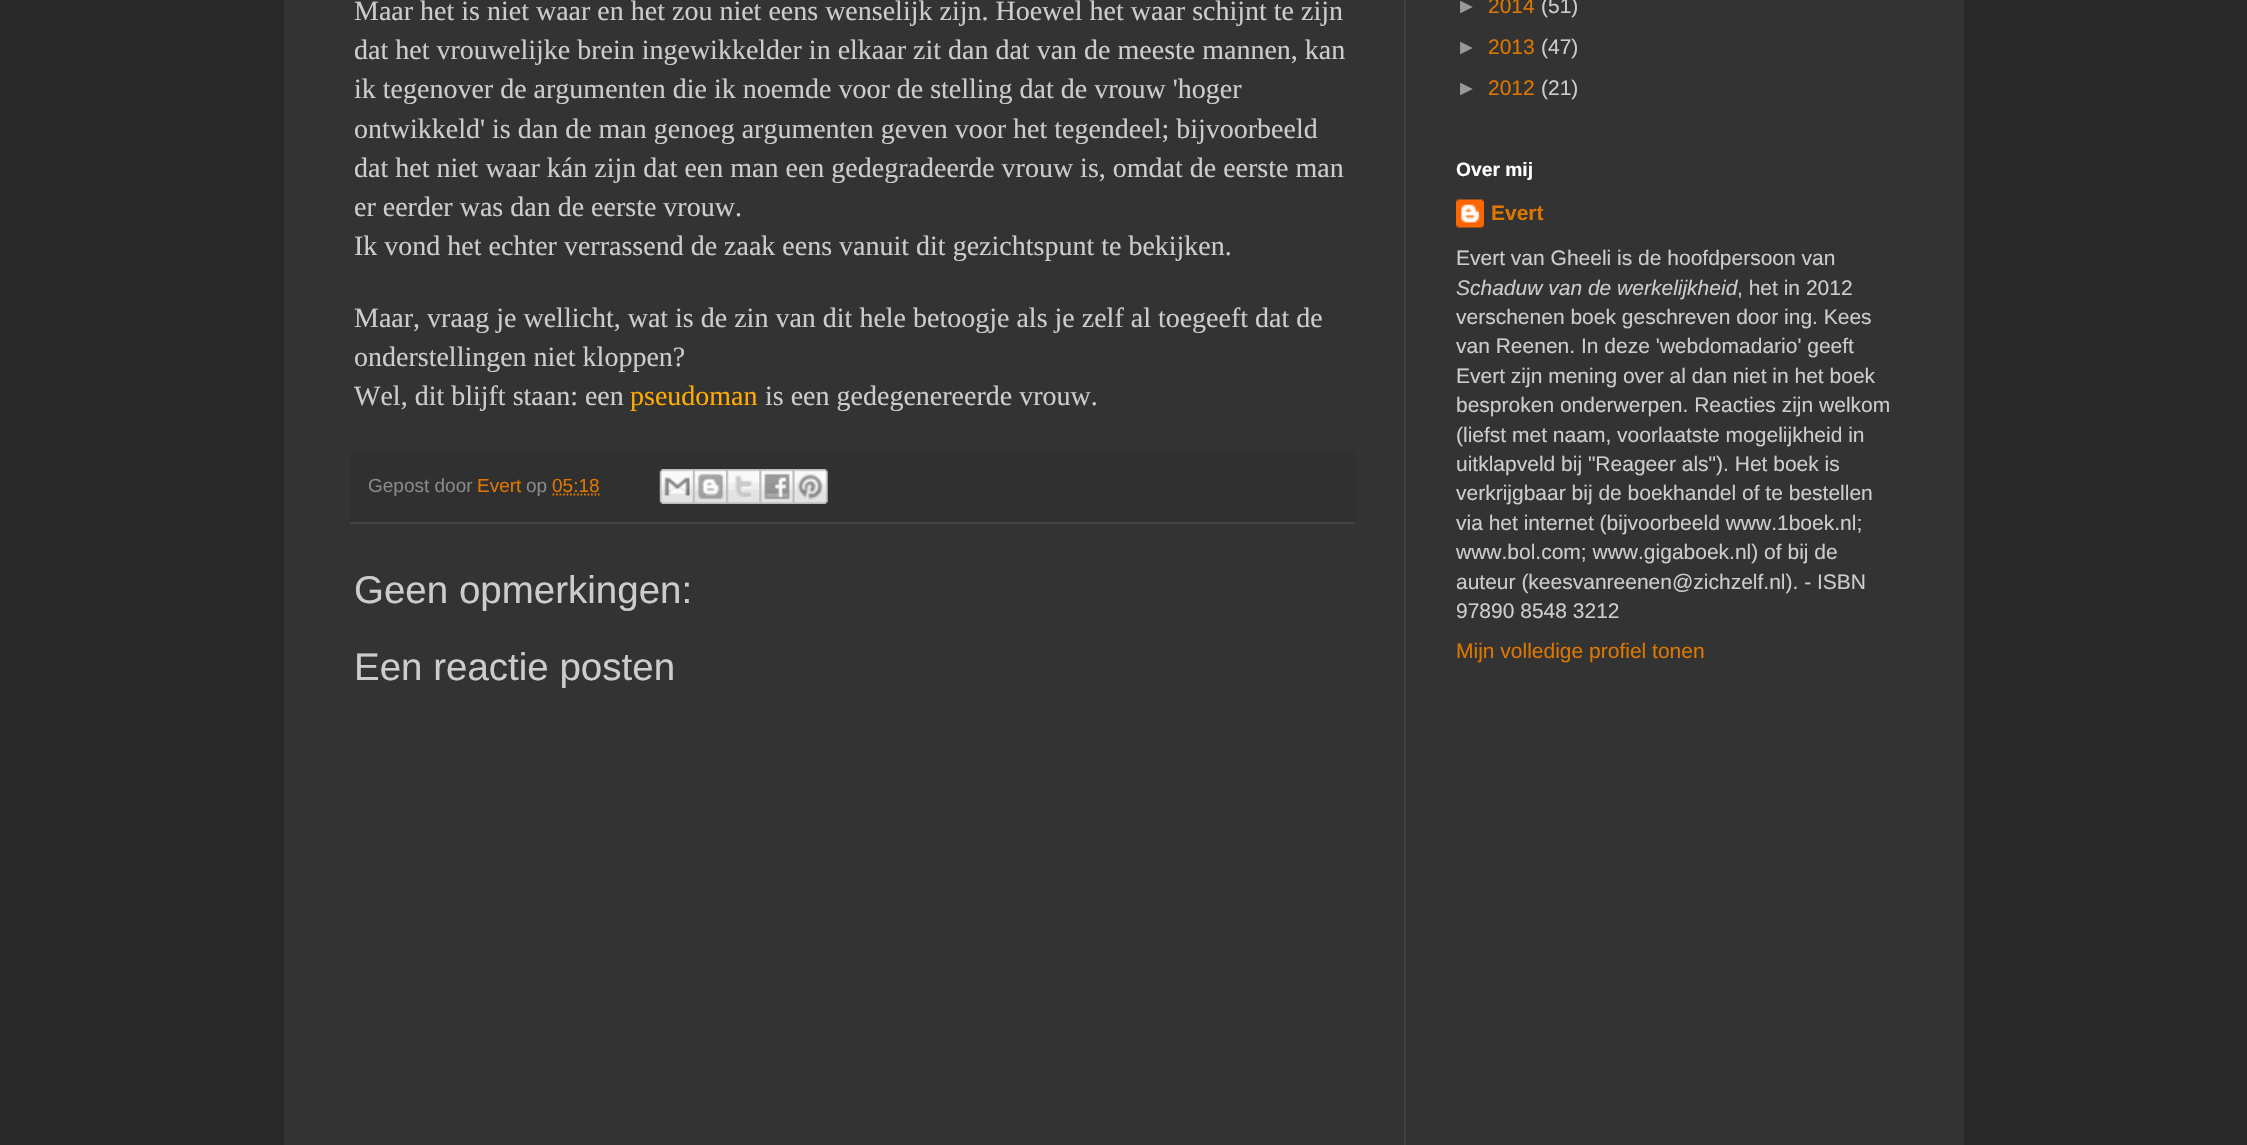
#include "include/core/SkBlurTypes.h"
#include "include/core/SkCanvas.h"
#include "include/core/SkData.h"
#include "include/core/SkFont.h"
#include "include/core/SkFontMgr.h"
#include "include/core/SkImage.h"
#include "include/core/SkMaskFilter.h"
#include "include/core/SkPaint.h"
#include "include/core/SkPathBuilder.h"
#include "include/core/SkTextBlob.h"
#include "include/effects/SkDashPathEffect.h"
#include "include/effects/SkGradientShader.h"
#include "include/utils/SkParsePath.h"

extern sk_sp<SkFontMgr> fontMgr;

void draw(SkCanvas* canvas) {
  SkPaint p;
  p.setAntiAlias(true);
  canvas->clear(SkColorSetRGB(41, 41, 41));
  p.setColor(SkColorSetRGB(51, 51, 51));
  canvas->drawRect(SkRect::MakeLTRB(284, 0, 1964, 1145), p);
  p.setColor(SkColorSetRGB(48, 48, 48));
  canvas->drawRect(SkRect::MakeLTRB(350, 452, 1355, 522), p);
  p.setColor(SkColorSetRGB(68, 68, 68));
  canvas->drawRect(SkRect::MakeLTRB(350, 522, 1355, 524), p);
  p.setStyle(SkPaint::kStroke_Style);
  p.setStrokeWidth(1.8f);
  p.setColor(SkColorSetRGB(221, 119, 0));
  p.setPathEffect(SkDashPathEffect::Make({{1.75f, 1.75f}}, 0));
  canvas->drawPath(SkPathBuilder().moveTo(552.5f, 494.5f).lineTo(599.5f, 494.5f).detach(), p);
  p.setPathEffect(nullptr);
  canvas->drawImageRect(SkImages::DeferredFromEncodedData(SkData::MakeFromFileName("images/1.png")), SkRect::MakeLTRB(659, 469, 693, 504), SkSamplingOptions());
  canvas->drawImageRect(SkImages::DeferredFromEncodedData(SkData::MakeFromFileName("images/2.png")), SkRect::MakeLTRB(693, 469, 727, 504), SkSamplingOptions());
  canvas->drawImageRect(SkImages::DeferredFromEncodedData(SkData::MakeFromFileName("images/3.png")), SkRect::MakeLTRB(726, 469, 760, 504), SkSamplingOptions());
  canvas->drawImageRect(SkImages::DeferredFromEncodedData(SkData::MakeFromFileName("images/4.png")), SkRect::MakeLTRB(759, 469, 793, 504), SkSamplingOptions());
  canvas->drawImageRect(SkImages::DeferredFromEncodedData(SkData::MakeFromFileName("images/5.png")), SkRect::MakeLTRB(792, 469, 828, 504), SkSamplingOptions());
  canvas->drawImageRect(SkImages::DeferredFromEncodedData(SkData::MakeFromFileName("images/6.png")), SkRect::MakeLTRB(1456, 199, 1484, 228), SkSamplingOptions());
  p.setStyle(SkPaint::kFill_Style);
  p.setColor(SkColorSetRGB(64, 64, 64));
  canvas->drawRect(SkRect::MakeLTRB(1404, 0, 1406, 1145), p);
  SkFont font1(fontMgr->matchFamilyStyle("Liberation Serif", SkFontStyle::Normal()), 28);
  font1.setSubpixel(true);
  p.setColor(SkColorSetRGB(204, 204, 204));
  canvas->drawString("Maar het is niet waar en het zou niet eens wenselijk zijn. Hoewel het waar schijnt te zijn", 354, 20, font1, p);
  canvas->drawString("dat het vrouwelijke brein ingewikkelder in elkaar zit dan dat van de meeste mannen, kan", 354, 59, font1, p);
  canvas->drawString("ik tegenover de argumenten die ik noemde voor de stelling dat de vrouw 'hoger", 354, 98, font1, p);
  canvas->drawString("ontwikkeld' is dan de man genoeg argumenten geven voor het tegendeel; bijvoorbeeld", 354, 138, font1, p);
  canvas->drawString("dat het niet waar kán zijn dat een man een gedegradeerde vrouw is, omdat de eerste man", 354, 177, font1, p);
  canvas->drawString("er eerder was dan de eerste vrouw.", 354, 216, font1, p);
  canvas->drawString("Ik vond het echter verrassend de zaak eens vanuit dit gezichtspunt te bekijken.", 354, 255, font1, p);
  canvas->drawString("Maar, vraag je wellicht, wat is de zin van dit hele betoogje als je zelf al toegeeft dat de", 354, 327, font1, p);
  canvas->drawString("onderstellingen niet kloppen?", 354, 366, font1, p);
  canvas->drawString("Wel, dit blijft staan: een", 354, 405, font1, p);
  p.setColor(SkColorSetRGB(255, 172, 0));
  canvas->drawString("pseudoman", 630, 405, font1, p);
  p.setColor(SkColorSetRGB(204, 204, 204));
  canvas->drawString("is een gedegenereerde vrouw.", 765, 405, font1, p);
  SkFont font2(fontMgr->matchFamilyStyle("Liberation Sans", SkFontStyle::Normal()), 19);
  font2.setSubpixel(true);
  p.setColor(SkColorSetRGB(136, 136, 136));
  canvas->drawString("Gepost door", 368, 492, font2, p);
  p.setColor(SkColorSetRGB(221, 119, 0));
  canvas->drawString("Evert", 477, 492, font2, p);
  p.setColor(SkColorSetRGB(136, 136, 136));
  canvas->drawString("op", 526, 492, font2, p);
  p.setColor(SkColorSetRGB(221, 119, 0));
  canvas->drawString("05:18", 552, 492, font2, p);
  SkFont font3(fontMgr->matchFamilyStyle("Liberation Sans", SkFontStyle::Normal()), 38.5f);
  font3.setSubpixel(true);
  p.setColor(SkColorSetRGB(204, 204, 204));
  canvas->drawString("Geen opmerkingen:", 354, 603, font3, p);
  canvas->drawString("Een reactie posten", 354, 680, font3, p);
  SkFont font4(fontMgr->matchFamilyStyle("Liberation Sans", SkFontStyle::Normal()), 21);
  font4.setSubpixel(true);
  p.setColor(SkColorSetRGB(153, 153, 153));
  canvas->drawString("►", 1456, 13, font4, p);
  p.setColor(SkColorSetRGB(221, 119, 0));
  canvas->drawString("2014", 1488, 13, font4, p);
  p.setColor(SkColorSetRGB(204, 204, 204));
  canvas->drawString("(51)", 1541, 13, font4, p);
  p.setColor(SkColorSetRGB(153, 153, 153));
  canvas->drawString("►", 1456, 54, font4, p);
  p.setColor(SkColorSetRGB(221, 119, 0));
  canvas->drawString("2013", 1488, 54, font4, p);
  p.setColor(SkColorSetRGB(204, 204, 204));
  canvas->drawString("(47)", 1541, 54, font4, p);
  p.setColor(SkColorSetRGB(153, 153, 153));
  canvas->drawString("►", 1456, 95, font4, p);
  p.setColor(SkColorSetRGB(221, 119, 0));
  canvas->drawString("2012", 1488, 95, font4, p);
  p.setColor(SkColorSetRGB(204, 204, 204));
  canvas->drawString("(21)", 1541, 95, font4, p);
  SkFont font5(fontMgr->matchFamilyStyle("Liberation Sans", SkFontStyle::Bold()), 19.25f);
  font5.setSubpixel(true);
  p.setColor(SK_ColorWHITE);
  canvas->drawString("Over mij", 1456, 176, font5, p);
  SkFont font6(fontMgr->matchFamilyStyle("Liberation Sans", SkFontStyle::Bold()), 21);
  font6.setSubpixel(true);
  p.setColor(SkColorSetRGB(221, 119, 0));
  canvas->drawString("Evert", 1491, 220, font6, p);
  p.setColor(SkColorSetRGB(204, 204, 204));
  canvas->drawString("Evert van Gheeli is de hoofdpersoon van", 1456, 265, font4, p);
  SkFont font7(fontMgr->matchFamilyStyle("Liberation Sans", SkFontStyle::Italic()), 21);
  font7.setSubpixel(true);
  canvas->drawString("Schaduw van de werkelijkheid", 1456, 295, font7, p);
  canvas->drawString(", het in 2012", 1737, 295, font4, p);
  canvas->drawString("verschenen boek geschreven door ing. Kees", 1456, 324, font4, p);
  canvas->drawString("van Reenen. In deze 'webdomadario' geeft", 1456, 353, font4, p);
  canvas->drawString("Evert zijn mening over al dan niet in het boek", 1456, 383, font4, p);
  canvas->drawString("besproken onderwerpen. Reacties zijn welkom", 1456, 412, font4, p);
  canvas->drawString("(liefst met naam, voorlaatste mogelijkheid in", 1456, 442, font4, p);
  canvas->drawString("uitklapveld bij \"Reageer als\"). Het boek is", 1456, 471, font4, p);
  canvas->drawString("verkrijgbaar bij de boekhandel of te bestellen", 1456, 500, font4, p);
  canvas->drawString("via het internet (bijvoorbeeld www.1boek.nl;", 1456, 530, font4, p);
  canvas->drawString("www.bol.com; www.gigaboek.nl) of bij de", 1456, 559, font4, p);
  canvas->drawString("auteur (keesvanreenen@zichzelf.nl). - ISBN", 1456, 589, font4, p);
  canvas->drawString("97890 8548 3212", 1456, 618, font4, p);
  p.setColor(SkColorSetRGB(221, 119, 0));
  canvas->drawString("Mijn volledige profiel tonen", 1456, 658, font4, p);
}
